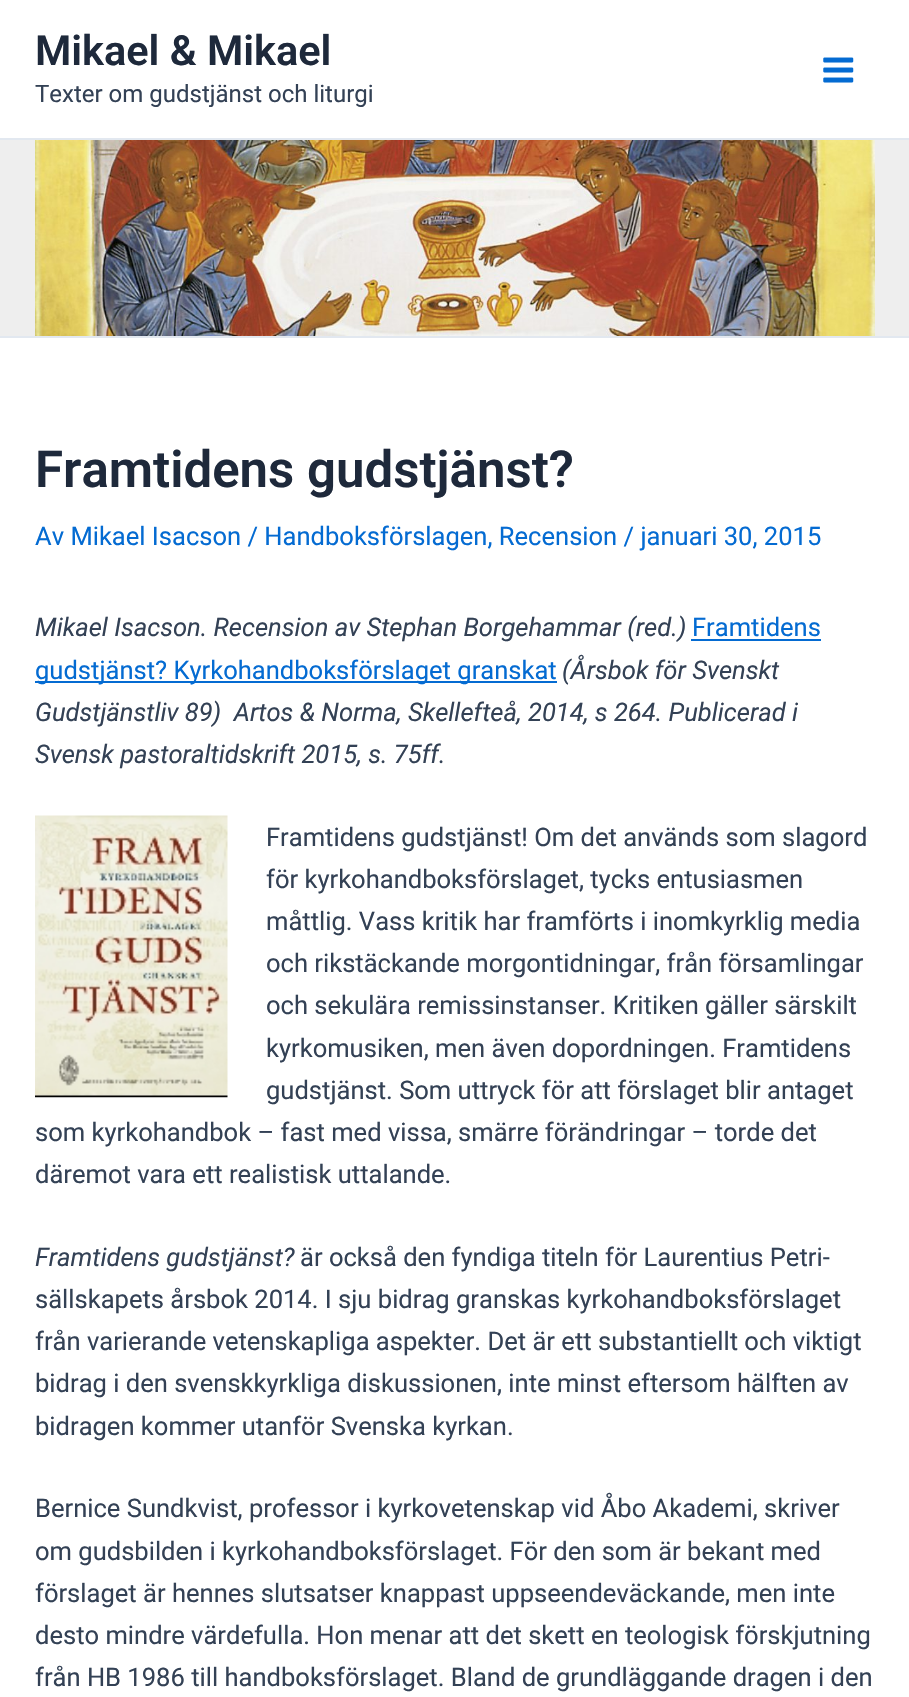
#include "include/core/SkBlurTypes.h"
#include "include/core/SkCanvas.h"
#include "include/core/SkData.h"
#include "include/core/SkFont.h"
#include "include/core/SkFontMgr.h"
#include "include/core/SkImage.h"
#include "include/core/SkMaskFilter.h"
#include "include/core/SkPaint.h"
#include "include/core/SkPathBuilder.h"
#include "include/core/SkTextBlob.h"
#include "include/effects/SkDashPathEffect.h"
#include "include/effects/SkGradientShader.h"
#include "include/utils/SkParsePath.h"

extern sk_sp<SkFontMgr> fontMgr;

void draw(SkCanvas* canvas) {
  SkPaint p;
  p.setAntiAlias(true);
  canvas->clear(SK_ColorWHITE);
  p.setColor(SkColorSetRGB(226, 232, 240));
  canvas->drawRect(SkRect::MakeLTRB(0, 138, 909, 140), p);
  canvas->drawImageRect(SkImages::DeferredFromEncodedData(SkData::MakeFromFileName("images/1.png")), SkRect::MakeLTRB(823, 57, 854, 83), SkSamplingOptions());
  p.setColor(SkColorSetRGB(238, 238, 238));
  canvas->drawRect(SkRect::MakeLTRB(0, 140, 909, 336), p);
  p.setColor(SkColorSetRGB(226, 232, 240));
  canvas->drawRect(SkRect::MakeLTRB(0, 336, 909, 338), p);
  canvas->drawImageRect(SkImages::DeferredFromEncodedData(SkData::MakeFromFileName("images/2.png")), SkRect::MakeLTRB(35, 140, 875, 336), SkSamplingOptions());
  p.setColor(SkColorSetRGB(4, 107, 210));
  canvas->drawRect(SkRect::MakeLTRB(691, 639, 821, 641), p);
  canvas->drawRect(SkRect::MakeLTRB(35, 681, 557, 683), p);
  canvas->drawImageRect(SkImages::DeferredFromEncodedData(SkData::MakeFromFileName("images/3.png")), SkRect::MakeLTRB(35, 815, 228, 1098), SkSamplingOptions());
  SkFont font1(fontMgr->matchFamilyStyle("Roboto", SkFontStyle(600, SkFontStyle::kNormal_Width, SkFontStyle::kUpright_Slant)), 41.5f);
  font1.setSubpixel(true);
  p.setColor(SkColorSetRGB(30, 41, 59));
  canvas->drawString("Mikael & Mikael", 35, 65, font1, p);
  SkFont font2(fontMgr->matchFamilyStyle("Roboto", SkFontStyle::Normal()), 24);
  font2.setSubpixel(true);
  p.setColor(SkColorSetRGB(51, 65, 85));
  canvas->drawString("Texter om gudstjänst och liturgi", 35, 102, font2, p);
  SkFont font3(fontMgr->matchFamilyStyle("Roboto", SkFontStyle(600, SkFontStyle::kNormal_Width, SkFontStyle::kUpright_Slant)), 51);
  font3.setSubpixel(true);
  p.setColor(SkColorSetRGB(30, 41, 59));
  canvas->drawString("Framtidens gudstjänst?", 35, 487, font3, p);
  SkFont font4(fontMgr->matchFamilyStyle("Roboto", SkFontStyle::Normal()), 25.55f);
  font4.setSubpixel(true);
  p.setColor(SkColorSetRGB(4, 107, 210));
  canvas->drawString("Av Mikael Isacson / Handboksförslagen, Recension / januari 30, 2015", 35, 545, font4, p);
  SkFont font5(fontMgr->matchFamilyStyle("Roboto", SkFontStyle::Italic()), 25.55f);
  font5.setSubpixel(true);
  p.setColor(SkColorSetRGB(51, 65, 85));
  canvas->drawString("Mikael Isacson. Recension av Stephan Borgehammar (red.)", 35, 636, font5, p);
  p.setColor(SkColorSetRGB(4, 107, 210));
  canvas->drawString("Framtidens", 692, 636, font4, p);
  canvas->drawString("gudstjänst? Kyrkohandboksförslaget granskat", 35, 679, font4, p);
  p.setColor(SkColorSetRGB(51, 65, 85));
  canvas->drawString("(Årsbok för Svenskt", 562, 679, font5, p);
  canvas->drawString("Gudstjänstliv 89)  Artos & Norma, Skellefteå, 2014, s 264. Publicerad i", 35, 721, font5, p);
  canvas->drawString("Svensk pastoraltidskrift 2015, s. 75ff.", 35, 763, font5, p);
  canvas->drawString("Framtidens gudstjänst! Om det används som slagord", 266, 846, font4, p);
  canvas->drawString("för kyrkohandboksförslaget, tycks entusiasmen", 266, 888, font4, p);
  canvas->drawString("måttlig. Vass kritik har framförts i inomkyrklig media", 266, 930, font4, p);
  canvas->drawString("och rikstäckande morgontidningar, från församlingar", 266, 972, font4, p);
  canvas->drawString("och sekulära remissinstanser. Kritiken gäller särskilt", 266, 1014, font4, p);
  canvas->drawString("kyrkomusiken, men även dopordningen. Framtidens", 266, 1057, font4, p);
  canvas->drawString("gudstjänst. Som uttryck för att förslaget blir antaget", 266, 1099, font4, p);
  canvas->drawString("som kyrkohandbok – fast med vissa, smärre förändringar – torde det", 35, 1141, font4, p);
  canvas->drawString("däremot vara ett realistisk uttalande.", 35, 1183, font4, p);
  canvas->drawString("Framtidens gudstjänst?", 35, 1266, font5, p);
  canvas->drawString("är också den fyndiga titeln för Laurentius Petri-", 300, 1266, font4, p);
  canvas->drawString("sällskapets årsbok 2014. I sju bidrag granskas kyrkohandboksförslaget", 35, 1308, font4, p);
  canvas->drawString("från varierande vetenskapliga aspekter. Det är ett substantiellt och viktigt", 35, 1350, font4, p);
  canvas->drawString("bidrag i den svenskkyrkliga diskussionen, inte minst eftersom hälften av", 35, 1392, font4, p);
  canvas->drawString("bidragen kommer utanför Svenska kyrkan.", 35, 1435, font4, p);
  canvas->drawString("Bernice Sundkvist, professor i kyrkovetenskap vid Åbo Akademi, skriver", 35, 1517, font4, p);
  canvas->drawString("om gudsbilden i kyrkohandboksförslaget. För den som är bekant med", 35, 1560, font4, p);
  canvas->drawString("förslaget är hennes slutsatser knappast uppseendeväckande, men inte", 35, 1602, font4, p);
  canvas->drawString("desto mindre värdefulla. Hon menar att det skett en teologisk förskjutning", 35, 1644, font4, p);
  canvas->drawString("från HB 1986 till handboksförslaget. Bland de grundläggande dragen i den", 35, 1686, font4, p);
}
